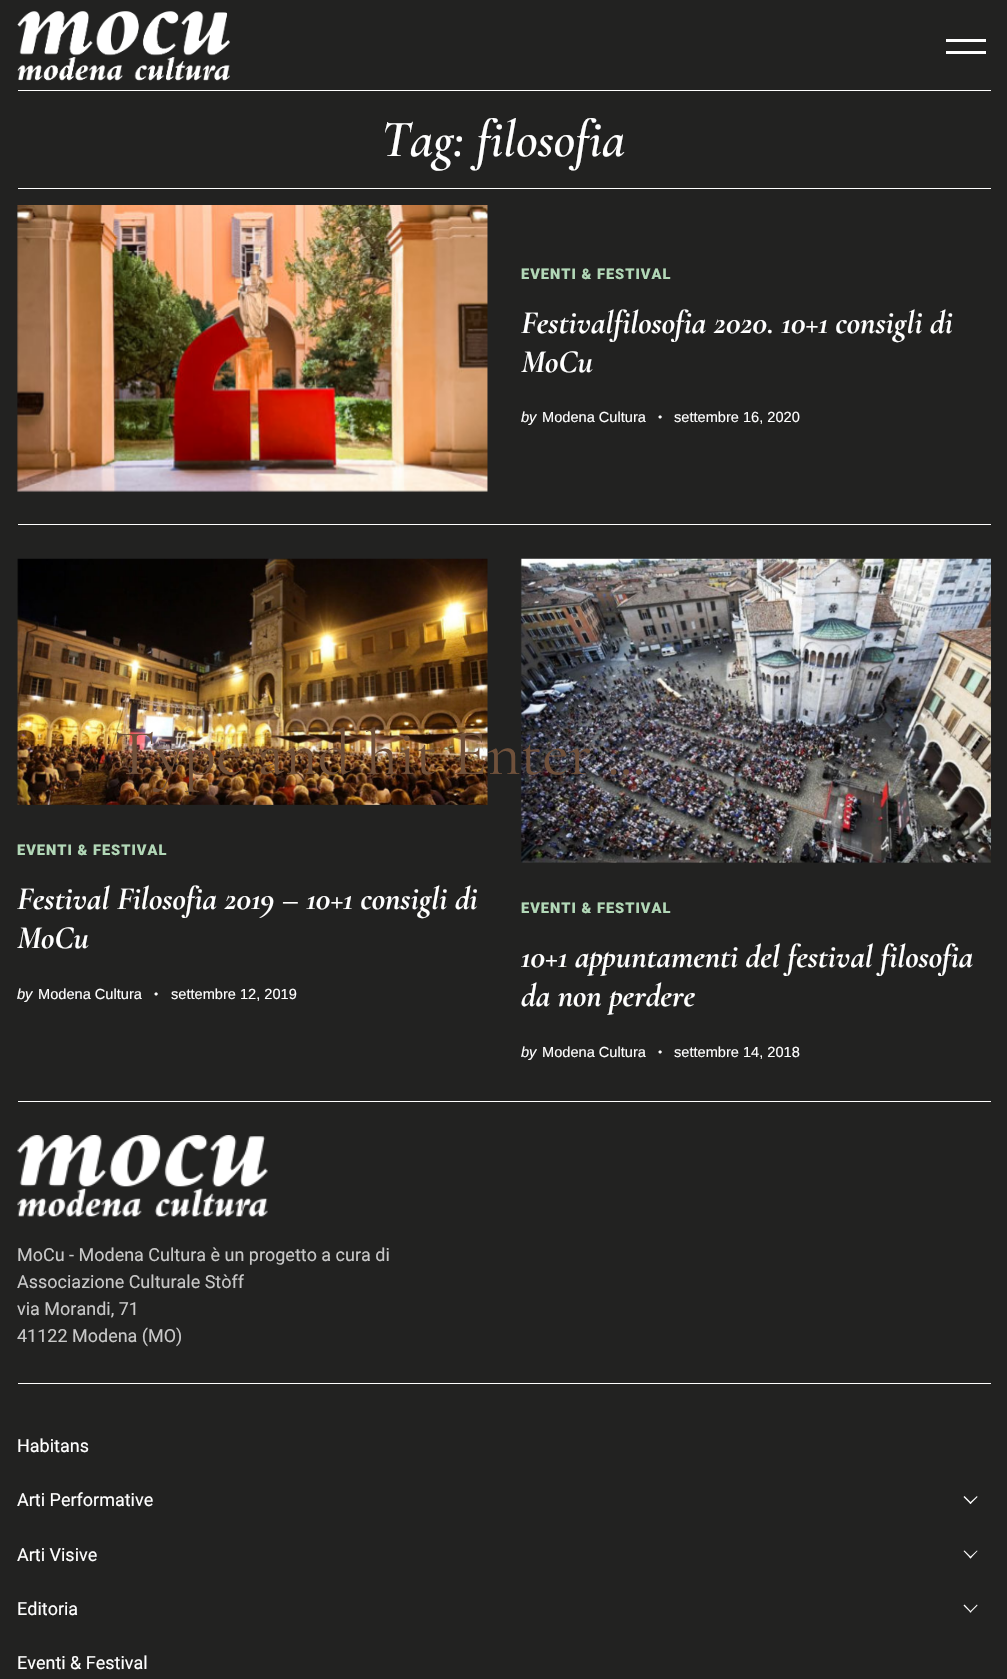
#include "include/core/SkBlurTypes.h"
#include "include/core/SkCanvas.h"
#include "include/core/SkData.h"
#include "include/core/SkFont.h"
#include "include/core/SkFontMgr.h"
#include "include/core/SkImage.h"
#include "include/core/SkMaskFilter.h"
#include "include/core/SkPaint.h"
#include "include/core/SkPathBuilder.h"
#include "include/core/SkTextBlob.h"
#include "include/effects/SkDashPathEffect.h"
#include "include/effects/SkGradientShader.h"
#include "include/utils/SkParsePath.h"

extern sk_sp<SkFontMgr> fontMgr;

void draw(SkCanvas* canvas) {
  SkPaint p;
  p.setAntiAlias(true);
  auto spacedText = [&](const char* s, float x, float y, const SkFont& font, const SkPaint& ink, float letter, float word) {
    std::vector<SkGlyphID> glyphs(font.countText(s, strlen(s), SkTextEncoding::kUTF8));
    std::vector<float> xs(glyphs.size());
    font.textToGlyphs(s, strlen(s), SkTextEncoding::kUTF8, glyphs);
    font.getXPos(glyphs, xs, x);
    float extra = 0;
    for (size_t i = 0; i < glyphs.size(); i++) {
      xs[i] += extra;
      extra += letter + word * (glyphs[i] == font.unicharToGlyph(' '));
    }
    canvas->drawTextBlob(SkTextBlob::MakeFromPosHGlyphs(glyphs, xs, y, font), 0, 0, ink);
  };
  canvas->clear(SkColorSetRGB(34, 34, 33));
  canvas->drawImageRect(SkImages::DeferredFromEncodedData(SkData::MakeFromFileName("images/1.png")), SkRect::MakeLTRB(17, 11, 230, 81), SkSamplingOptions());
  p.setColor(SK_ColorWHITE);
  canvas->drawRect(SkRect::MakeLTRB(946, 39, 986, 42), p);
  canvas->drawRect(SkRect::MakeLTRB(946, 51, 986, 54), p);
  canvas->drawRect(SkRect::MakeLTRB(18, 90, 991, 91), p);
  canvas->drawRect(SkRect::MakeLTRB(18, 188, 991, 189), p);
  canvas->drawImageRect(SkImages::DeferredFromEncodedData(SkData::MakeFromFileName("images/2.png")), SkRect::MakeLTRB(17, 205, 488, 492), SkSamplingOptions());
  canvas->drawRect(SkRect::MakeLTRB(18, 524, 991, 525), p);
  canvas->drawImageRect(SkImages::DeferredFromEncodedData(SkData::MakeFromFileName("images/3.png")), SkRect::MakeLTRB(17, 558, 488, 805), SkSamplingOptions());
  canvas->drawImageRect(SkImages::DeferredFromEncodedData(SkData::MakeFromFileName("images/4.png")), SkRect::MakeLTRB(520, 558, 991, 863), SkSamplingOptions());
  canvas->drawRect(SkRect::MakeLTRB(18, 1101, 991, 1102), p);
  canvas->drawImageRect(SkImages::DeferredFromEncodedData(SkData::MakeFromFileName("images/5.png")), SkRect::MakeLTRB(17, 1135, 268, 1217), SkSamplingOptions());
  canvas->drawRect(SkRect::MakeLTRB(18, 1383, 991, 1384), p);
  canvas->drawPath(SkPathBuilder().moveTo(977.5f, 1497).lineTo(970.5f, 1504).lineTo(969.5f, 1503).lineTo(977, 1496).close().detach(), p);
  canvas->drawPath(SkPathBuilder().moveTo(971.5f, 1503).lineTo(970.5f, 1504).lineTo(963.5f, 1497).lineTo(964.5f, 1496).close().detach(), p);
  canvas->drawPath(SkPathBuilder().moveTo(977.5f, 1551).lineTo(970.5f, 1558.5f).lineTo(969.5f, 1557.5f).lineTo(977, 1550.5f).close().detach(), p);
  canvas->drawPath(SkPathBuilder().moveTo(971.5f, 1557.5f).lineTo(970.5f, 1558.5f).lineTo(963.5f, 1551).lineTo(964.5f, 1550.5f).close().detach(), p);
  canvas->drawPath(SkPathBuilder().moveTo(977.5f, 1605.5f).lineTo(970.5f, 1612.5f).lineTo(969.5f, 1612).lineTo(977, 1604.5f).close().detach(), p);
  canvas->drawPath(SkPathBuilder().moveTo(971.5f, 1612).lineTo(970.5f, 1612.5f).lineTo(963.5f, 1605.5f).lineTo(964.5f, 1604.5f).close().detach(), p);
  SkFont font1(fontMgr->matchFamilyStyle("Cormorant", SkFontStyle(600, SkFontStyle::kNormal_Width, SkFontStyle::kItalic_Slant)), 52.5f);
  font1.setSubpixel(true);
  canvas->drawString("Tag: filosofia", 381, 156, font1, p);
  SkFont font2(fontMgr->matchFamilyStyle("Roboto", SkFontStyle(900, SkFontStyle::kNormal_Width, SkFontStyle::kUpright_Slant)), 14.6f);
  font2.setSubpixel(true);
  p.setColor(SkColorSetRGB(178, 216, 183));
  spacedText("EVENTI & FESTIVAL", 521, 279, font2, p, 1, 0);
  SkFont font3(fontMgr->matchFamilyStyle("Cormorant", SkFontStyle::BoldItalic()), 32.5f);
  font3.setSubpixel(true);
  p.setColor(SK_ColorWHITE);
  canvas->drawString("Festivalfilosofia 2020. 10+1 consigli di", 521, 333, font3, p);
  canvas->drawString("MoCu", 521, 372, font3, p);
  SkFont font4(fontMgr->matchFamilyStyle("Liberation Sans", SkFontStyle::Italic()), 14.6f);
  font4.setSubpixel(true);
  canvas->drawString("by", 521, 422, font4, p);
  SkFont font5(fontMgr->matchFamilyStyle("Liberation Sans", SkFontStyle::Normal()), 14.6f);
  font5.setSubpixel(true);
  canvas->drawString("Modena Cultura", 542, 422, font5, p);
  SkFont font6(fontMgr->matchFamilyStyle("Liberation Sans", SkFontStyle::Normal()), 7);
  font6.setSubpixel(true);
  canvas->drawString("●", 658, 419, font6, p);
  canvas->drawString("settembre 16, 2020", 674, 422, font5, p);
  p.setColor(SkColorSetRGB(178, 216, 183));
  spacedText("EVENTI & FESTIVAL", 17, 855, font2, p, 1, 0);
  p.setColor(SK_ColorWHITE);
  canvas->drawString("Festival Filosofia 2019 – 10+1 consigli di", 17, 909, font3, p);
  canvas->drawString("MoCu", 17, 948, font3, p);
  canvas->drawString("by", 17, 999, font4, p);
  canvas->drawString("Modena Cultura", 38, 999, font5, p);
  canvas->drawString("●", 154, 996, font6, p);
  canvas->drawString("settembre 12, 2019", 171, 999, font5, p);
  p.setColor(SkColorSetRGB(178, 216, 183));
  spacedText("EVENTI & FESTIVAL", 521, 913, font2, p, 1, 0);
  p.setColor(SK_ColorWHITE);
  canvas->drawString("10+1 appuntamenti del festival filosofia", 521, 967, font3, p);
  canvas->drawString("da non perdere", 521, 1006, font3, p);
  canvas->drawString("by", 521, 1057, font4, p);
  canvas->drawString("Modena Cultura", 542, 1057, font5, p);
  canvas->drawString("●", 658, 1054, font6, p);
  canvas->drawString("settembre 14, 2018", 674, 1057, font5, p);
  SkFont font7(fontMgr->matchFamilyStyle("Roboto", SkFontStyle::Normal()), 18);
  font7.setSubpixel(true);
  p.setColor(SkColorSetRGB(200, 200, 200));
  canvas->drawString("MoCu - Modena Cultura è un progetto a cura di", 17, 1261, font7, p);
  canvas->drawString("Associazione Culturale Stòff", 17, 1288, font7, p);
  canvas->drawString("via Morandi, 71", 17, 1315, font7, p);
  canvas->drawString("41122 Modena (MO)", 17, 1342, font7, p);
  p.setColor(SK_ColorWHITE);
  canvas->drawString("Habitans", 17, 1452, font7, p);
  canvas->drawString("Arti Performative", 17, 1506, font7, p);
  canvas->drawString("Arti Visive", 17, 1561, font7, p);
  canvas->drawString("Editoria", 17, 1615, font7, p);
  canvas->drawString("Eventi & Festival", 17, 1669, font7, p);
  SkFont font8(fontMgr->matchFamilyStyle("Cormorant", SkFontStyle::Normal()), 64.5f);
  font8.setSubpixel(true);
  p.setColor(SkColorSetRGB(112, 81, 59));
  canvas->drawString("Type and hit Enter ...", 114, 774, font8, p);
}
